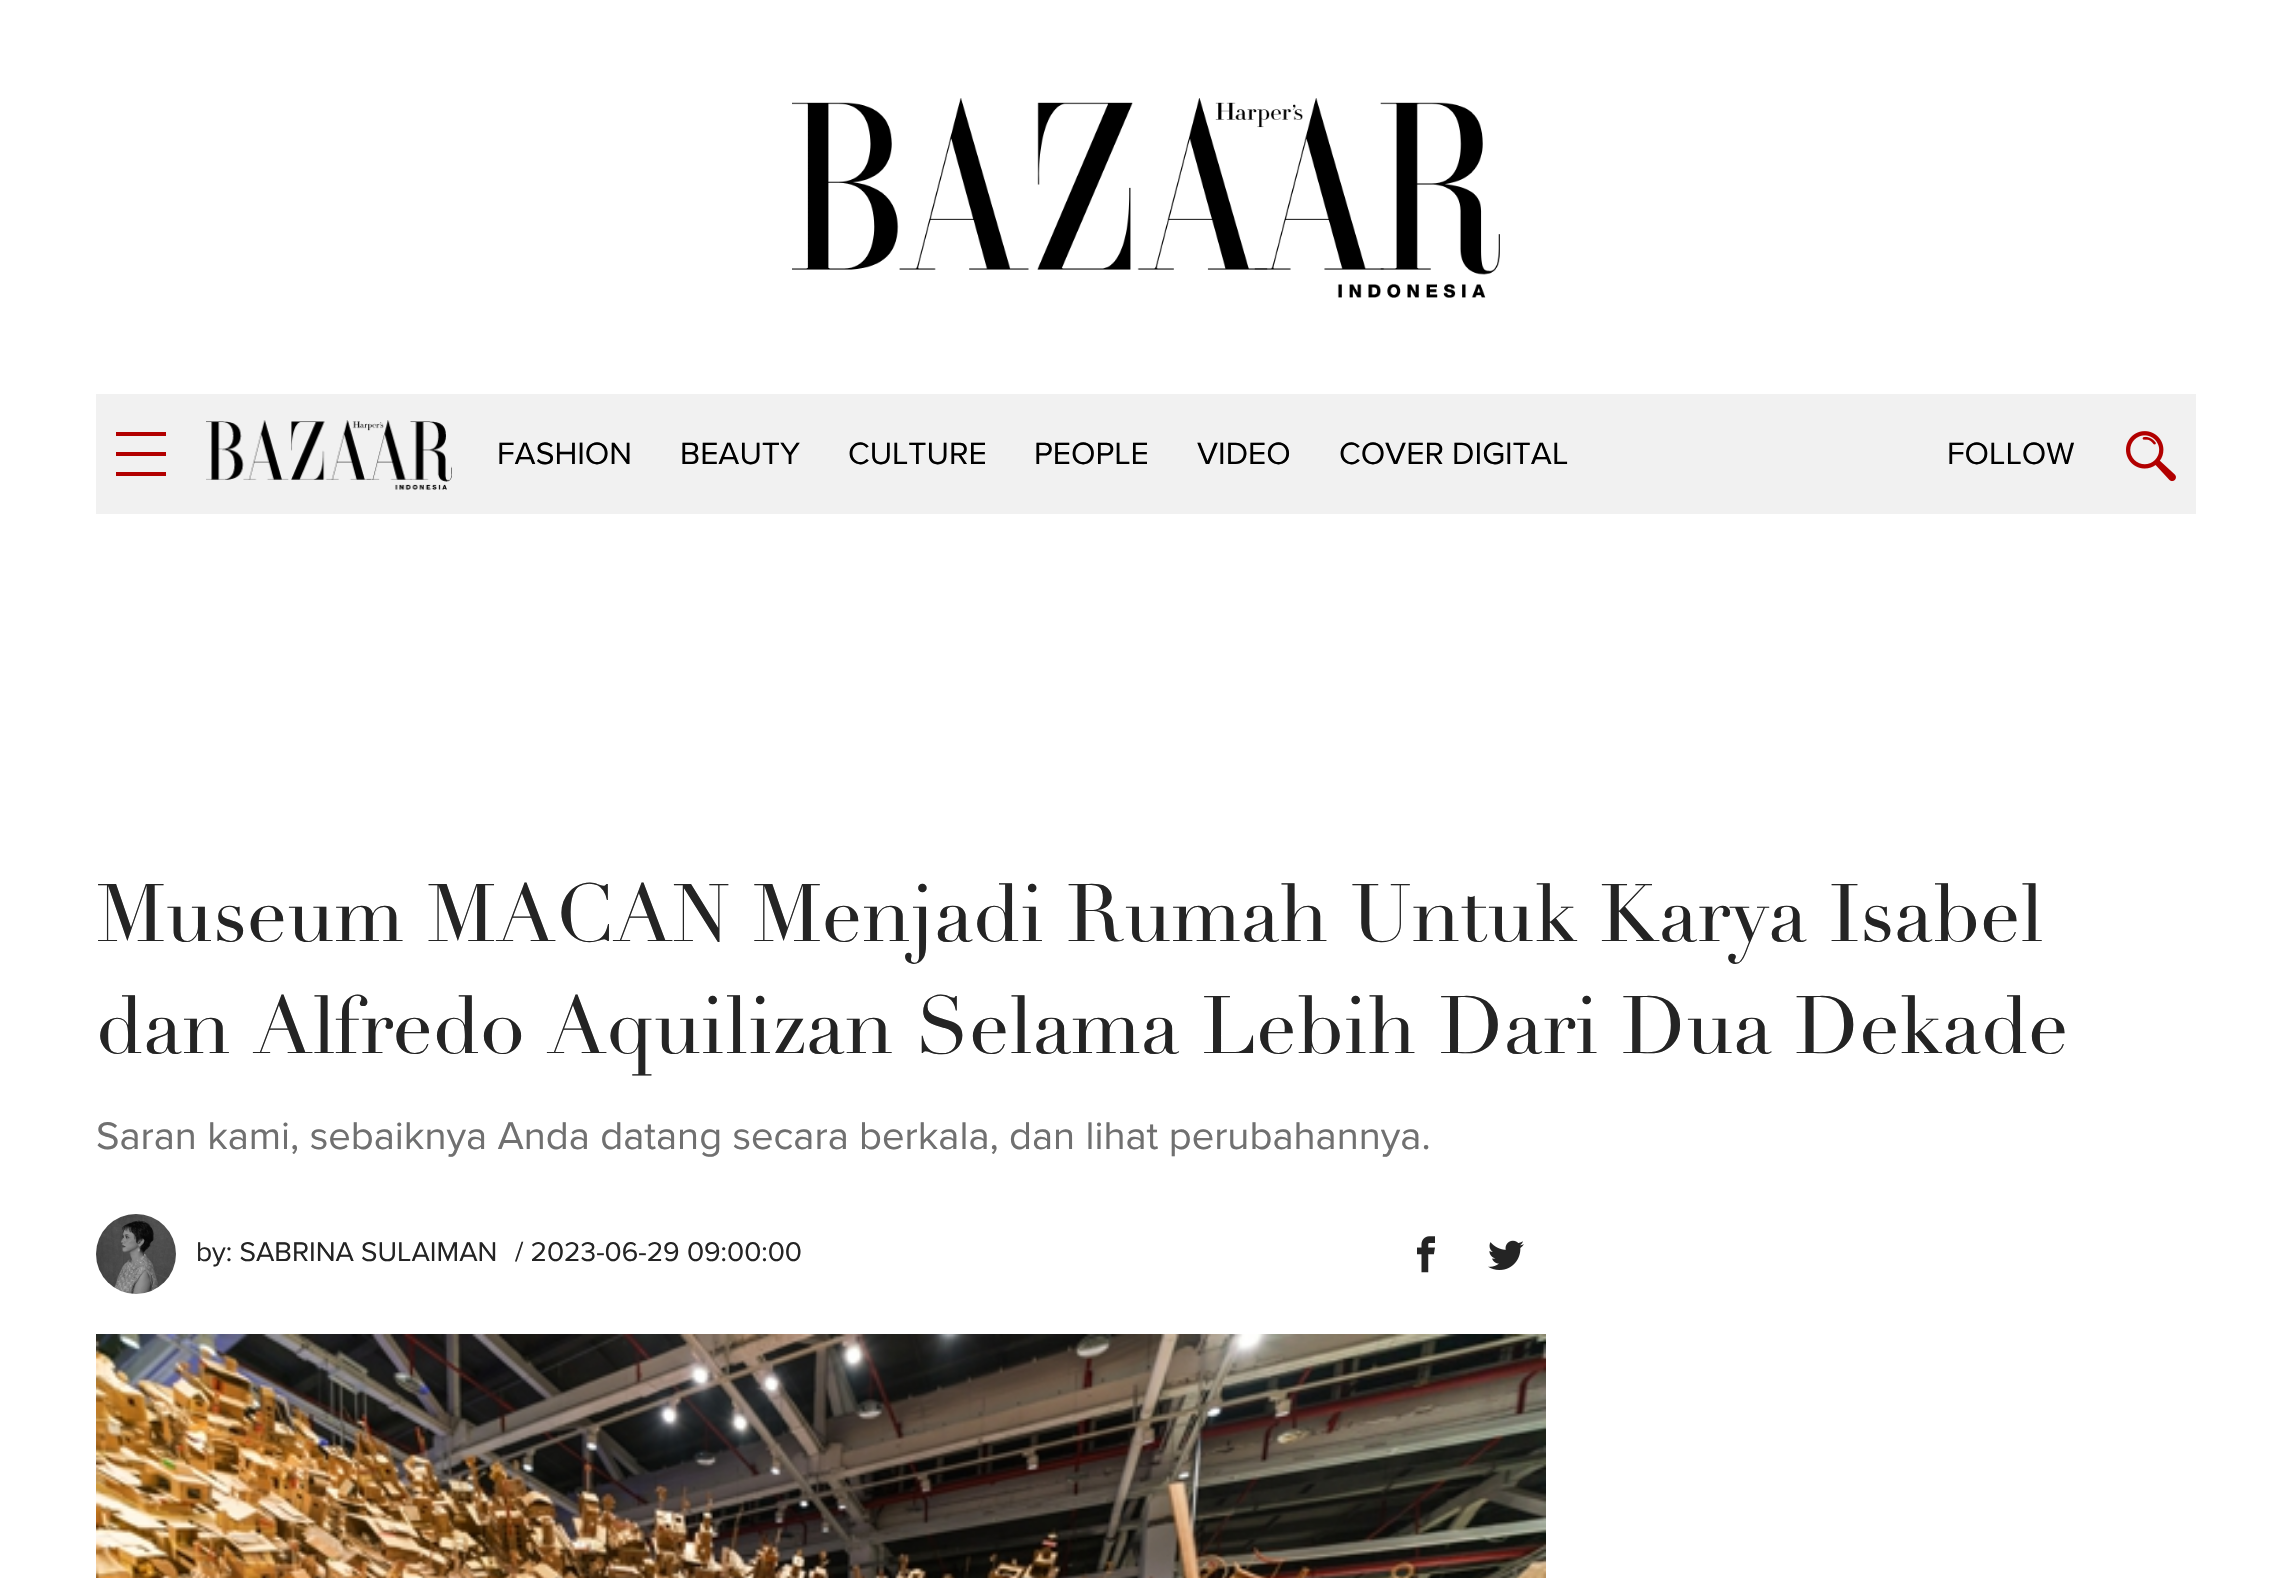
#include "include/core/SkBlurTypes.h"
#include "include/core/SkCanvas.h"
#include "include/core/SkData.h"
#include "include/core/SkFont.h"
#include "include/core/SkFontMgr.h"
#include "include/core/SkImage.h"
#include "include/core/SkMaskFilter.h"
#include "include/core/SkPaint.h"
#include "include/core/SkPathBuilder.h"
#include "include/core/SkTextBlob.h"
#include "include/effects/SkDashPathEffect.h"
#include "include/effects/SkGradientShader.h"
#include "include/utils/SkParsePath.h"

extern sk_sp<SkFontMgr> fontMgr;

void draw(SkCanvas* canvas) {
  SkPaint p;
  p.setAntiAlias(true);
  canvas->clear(SK_ColorWHITE);
  canvas->drawImageRect(SkImages::DeferredFromEncodedData(SkData::MakeFromFileName("images/1.png")), SkRect::MakeLTRB(792, 98, 1500, 298), SkSamplingOptions());
  p.setColor(SkColorSetRGB(241, 241, 241));
  canvas->drawRect(SkRect::MakeLTRB(96, 394, 2196, 514), p);
  p.setColor(SkColorSetRGB(178, 0, 0));
  canvas->drawRect(SkRect::MakeLTRB(116, 452, 166, 456), p);
  canvas->drawRect(SkRect::MakeLTRB(116, 432, 166, 436), p);
  canvas->drawRect(SkRect::MakeLTRB(116, 472, 166, 476), p);
  canvas->drawImageRect(SkImages::DeferredFromEncodedData(SkData::MakeFromFileName("images/2.png")), SkRect::MakeLTRB(206, 420, 452, 490), SkSamplingOptions());
  canvas->drawImageRect(SkImages::DeferredFromEncodedData(SkData::MakeFromFileName("images/3.png")), SkRect::MakeLTRB(2126, 431, 2176, 482), SkSamplingOptions());
  canvas->drawImageRect(SkImages::DeferredFromEncodedData(SkData::MakeFromFileName("images/4.png")), SkRect::MakeLTRB(96, 1214, 176, 1294), SkSamplingOptions());
  canvas->drawImageRect(SkImages::DeferredFromEncodedData(SkData::MakeFromFileName("images/5.png")), SkRect::MakeLTRB(1417, 1236, 1435, 1273), SkSamplingOptions());
  canvas->drawImageRect(SkImages::DeferredFromEncodedData(SkData::MakeFromFileName("images/6.png")), SkRect::MakeLTRB(1488, 1240, 1524, 1270), SkSamplingOptions());
  canvas->drawImageRect(SkImages::DeferredFromEncodedData(SkData::MakeFromFileName("images/7.png")), SkRect::MakeLTRB(96, 1334, 1546, 1578), SkSamplingOptions());
  SkFont font1(fontMgr->matchFamilyStyle("Proxima Nova", SkFontStyle::Normal()), 32);
  font1.setSubpixel(true);
  p.setColor(SK_ColorBLACK);
  canvas->drawString("FASHION", 497, 464, font1, p);
  canvas->drawString("BEAUTY", 680, 464, font1, p);
  canvas->drawString("CULTURE", 848, 464, font1, p);
  canvas->drawString("PEOPLE", 1034, 464, font1, p);
  canvas->drawString("VIDEO", 1197, 464, font1, p);
  canvas->drawString("COVER DIGITAL", 1339, 464, font1, p);
  canvas->drawString("FOLLOW", 1947, 464, font1, p);
  SkFont font2(fontMgr->matchFamilyStyle("Didot", SkFontStyle::Normal()), 80);
  font2.setSubpixel(true);
  p.setColor(SkColorSetRGB(36, 36, 36));
  canvas->drawString("Museum MACAN Menjadi Rumah Untuk Karya Isabel", 96, 941, font2, p);
  canvas->drawString("dan Alfredo Aquilizan Selama Lebih Dari Dua Dekade", 96, 1053, font2, p);
  SkFont font3(fontMgr->matchFamilyStyle("Proxima Nova", SkFontStyle::Normal()), 40);
  font3.setSubpixel(true);
  p.setColor(SkColorSetRGB(112, 112, 112));
  canvas->drawString("Saran kami, sebaiknya Anda datang secara berkala, dan lihat perubahannya.", 96, 1149, font3, p);
  SkFont font4(fontMgr->matchFamilyStyle("Proxima Nova", SkFontStyle::Normal()), 28);
  font4.setSubpixel(true);
  p.setColor(SkColorSetRGB(36, 36, 36));
  canvas->drawString("by: SABRINA SULAIMAN", 196, 1261, font4, p);
  canvas->drawString("/ 2023-06-29 09:00:00", 515, 1261, font4, p);
}
